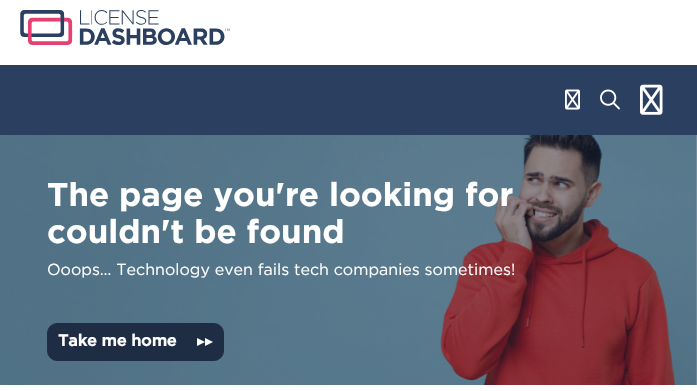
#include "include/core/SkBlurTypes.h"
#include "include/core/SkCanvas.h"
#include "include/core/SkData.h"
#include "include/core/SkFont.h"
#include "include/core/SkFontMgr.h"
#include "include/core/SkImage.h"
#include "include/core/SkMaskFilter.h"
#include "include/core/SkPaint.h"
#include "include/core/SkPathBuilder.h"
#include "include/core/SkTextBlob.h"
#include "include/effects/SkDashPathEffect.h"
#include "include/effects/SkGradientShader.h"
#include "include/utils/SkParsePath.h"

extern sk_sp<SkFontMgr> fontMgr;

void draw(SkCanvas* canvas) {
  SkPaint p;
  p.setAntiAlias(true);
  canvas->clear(SK_ColorWHITE);
  canvas->drawImageRect(SkImages::DeferredFromEncodedData(SkData::MakeFromFileName("images/1.png")), SkRect::MakeLTRB(20, 10, 230, 45), SkSamplingOptions());
  p.setColor(SkColorSetRGB(43, 63, 97));
  canvas->drawRect(SkRect::MakeLTRB(0, 65, 697, 135), p);
  canvas->drawImageRect(SkImages::DeferredFromEncodedData(SkData::MakeFromFileName("images/2.png")), SkRect::MakeLTRB(565, 89, 580, 110), SkSamplingOptions());
  canvas->drawImageRect(SkImages::DeferredFromEncodedData(SkData::MakeFromFileName("images/3.png")), SkRect::MakeLTRB(600, 89, 620, 110), SkSamplingOptions());
  canvas->drawImageRect(SkImages::DeferredFromEncodedData(SkData::MakeFromFileName("images/4.png")), SkRect::MakeLTRB(640, 84, 663, 115), SkSamplingOptions());
  canvas->drawImageRect(SkImages::DeferredFromEncodedData(SkData::MakeFromFileName("images/5.png")), SkRect::MakeLTRB(0, 135, 697, 385), SkSamplingOptions());
  p.setColor(SkColorSetRGB(31, 45, 68));
  canvas->drawRoundRect(SkRect::MakeLTRB(47.5f, 323.5f, 223.5f, 360.5f), 9.5f, 9.5f, p);
  p.setStyle(SkPaint::kStroke_Style);
  p.setStrokeWidth(1);
  canvas->drawRoundRect(SkRect::MakeLTRB(47.5f, 323.5f, 223.5f, 360.5f), 9.5f, 9.5f, p);
  canvas->drawImageRect(SkImages::DeferredFromEncodedData(SkData::MakeFromFileName("images/6.png")), SkRect::MakeLTRB(197, 338, 213, 346), SkSamplingOptions());
  SkFont font1(fontMgr->matchFamilyStyle("Gotham", SkFontStyle::Bold()), 33);
  font1.setSubpixel(true);
  p.setStyle(SkPaint::kFill_Style);
  p.setColor(SK_ColorWHITE);
  canvas->drawString("The page you're looking for", 47, 206, font1, p);
  canvas->drawString("couldn't be found", 47, 243, font1, p);
  SkFont font2(fontMgr->matchFamilyStyle("Gotham", SkFontStyle::Normal()), 16);
  font2.setSubpixel(true);
  canvas->drawString("Ooops… Technology even fails tech companies sometimes!", 47, 275, font2, p);
  SkFont font3(fontMgr->matchFamilyStyle("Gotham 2", SkFontStyle::Bold()), 16);
  font3.setSubpixel(true);
  canvas->drawString("Take me home", 58, 346, font3, p);
}
